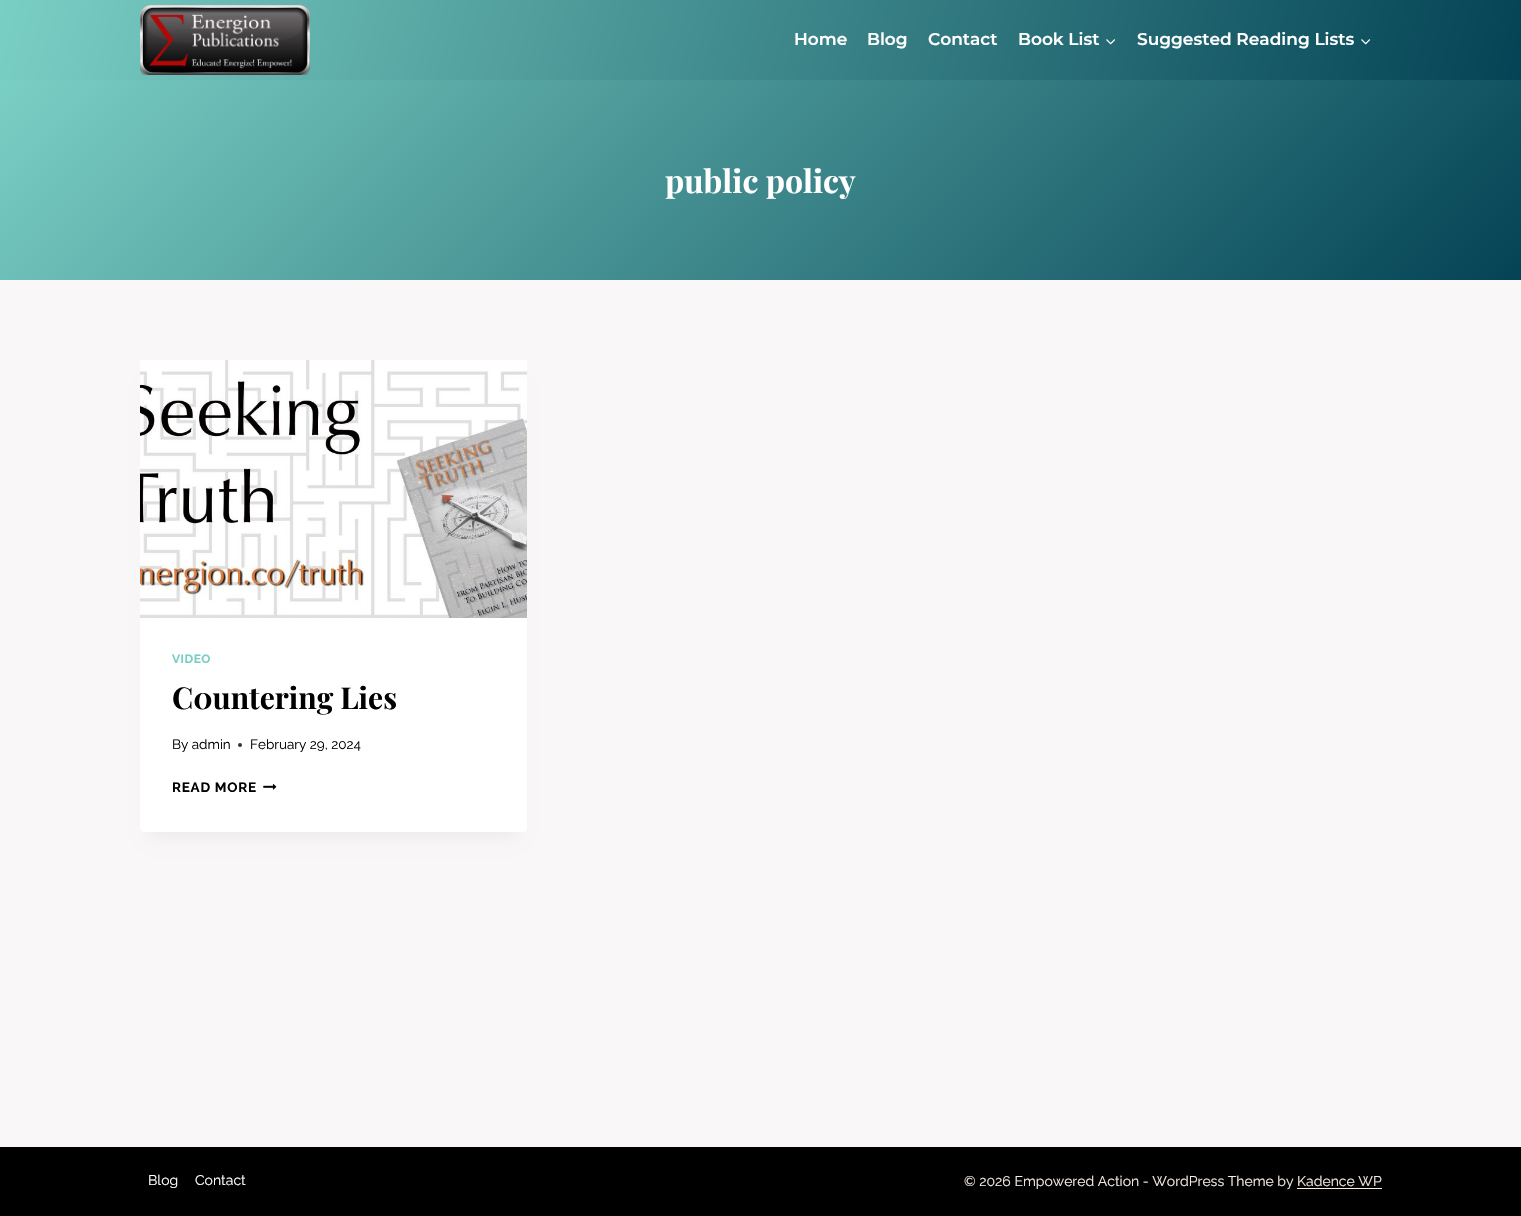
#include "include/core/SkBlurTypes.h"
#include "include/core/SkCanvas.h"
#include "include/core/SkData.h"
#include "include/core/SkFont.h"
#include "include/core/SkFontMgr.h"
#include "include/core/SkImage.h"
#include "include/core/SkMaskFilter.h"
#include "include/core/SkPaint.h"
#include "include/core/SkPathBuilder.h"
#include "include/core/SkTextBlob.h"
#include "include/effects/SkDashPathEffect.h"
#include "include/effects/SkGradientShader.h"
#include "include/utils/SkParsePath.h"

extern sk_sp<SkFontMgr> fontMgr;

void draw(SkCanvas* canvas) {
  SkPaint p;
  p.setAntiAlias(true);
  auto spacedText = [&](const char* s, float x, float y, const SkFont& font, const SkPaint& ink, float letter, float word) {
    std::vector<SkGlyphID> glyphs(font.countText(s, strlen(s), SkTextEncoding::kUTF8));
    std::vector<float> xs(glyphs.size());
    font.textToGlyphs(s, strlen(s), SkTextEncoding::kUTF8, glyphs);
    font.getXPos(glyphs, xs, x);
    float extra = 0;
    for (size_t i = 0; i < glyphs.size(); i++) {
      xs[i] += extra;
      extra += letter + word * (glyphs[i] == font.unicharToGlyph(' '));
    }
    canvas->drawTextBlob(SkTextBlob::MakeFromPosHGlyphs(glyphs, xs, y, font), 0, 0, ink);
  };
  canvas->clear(SkColorSetRGB(249, 247, 247));
  {
    const SkColor colors[] = {SkColorSetRGB(122, 207, 196), SkColorSetRGB(4, 67, 85)};
    const float stops[] = {0, 1};
    const SkPoint ends[] = {{47, -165}, {1474, 245}};
    p.setShader(SkGradientShader::MakeLinear(ends, colors, stops, 2, SkTileMode::kClamp));
    p.setAlpha(255);
  }
  canvas->drawRect(SkRect::MakeLTRB(0, 0, 1521, 80), p);
  canvas->drawImageRect(SkImages::DeferredFromEncodedData(SkData::MakeFromFileName("images/1.png")), SkRect::MakeLTRB(140, 5, 310, 75), SkSamplingOptions());
  canvas->drawImageRect(SkImages::DeferredFromEncodedData(SkData::MakeFromFileName("images/2.png")), SkRect::MakeLTRB(1106, 39, 1116, 45), SkSamplingOptions());
  canvas->drawImageRect(SkImages::DeferredFromEncodedData(SkData::MakeFromFileName("images/3.png")), SkRect::MakeLTRB(1361, 39, 1371, 45), SkSamplingOptions());
  {
    const SkColor colors[] = {SkColorSetRGB(122, 207, 196), SkColorSetRGB(4, 67, 85)};
    const float stops[] = {0, 1};
    const SkPoint ends[] = {{330, -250}, {1191, 610}};
    p.setShader(SkGradientShader::MakeLinear(ends, colors, stops, 2, SkTileMode::kClamp));
    p.setAlpha(255);
  }
  canvas->drawRect(SkRect::MakeLTRB(0, 80, 1521, 280), p);
  p.setShader(nullptr);
  p.setColor(SkColorSetARGB(13, 0, 0, 0));
  p.setMaskFilter(SkMaskFilter::MakeBlur(kNormal_SkBlurStyle, 7.5f));
  canvas->drawRect(SkRect::MakeLTRB(150, 385, 517, 837), p);
  p.setMaskFilter(nullptr);
  p.setColor(SK_ColorWHITE);
  canvas->drawRoundRect(SkRect::MakeLTRB(140, 360, 527, 832), 4, 4, p);
  canvas->drawImageRect(SkImages::DeferredFromEncodedData(SkData::MakeFromFileName("images/4.png")), SkRect::MakeLTRB(140, 360, 527, 618), SkSamplingOptions());
  p.setColor(SkColorSetRGB(52, 52, 52));
  canvas->drawCircle(240, 745, 2, p);
  canvas->drawImageRect(SkImages::DeferredFromEncodedData(SkData::MakeFromFileName("images/5.png")), SkRect::MakeLTRB(263, 783, 277, 790), SkSamplingOptions());
  p.setColor(SK_ColorBLACK);
  canvas->drawRect(SkRect::MakeLTRB(0, 1147, 1521, 1216), p);
  p.setColor(SkColorSetRGB(245, 236, 229));
  canvas->drawRect(SkRect::MakeLTRB(1297, 1188, 1382, 1189), p);
  SkFont font1(fontMgr->matchFamilyStyle("Montserrat", SkFontStyle(100, SkFontStyle::kNormal_Width, SkFontStyle::kUpright_Slant)), 17);
  font1.setSubpixel(true);
  p.setColor(SK_ColorWHITE);
  canvas->drawString("Home", 794, 45, font1, p);
  canvas->drawString("Blog", 867, 45, font1, p);
  canvas->drawString("Contact", 928, 45, font1, p);
  canvas->drawString("Book List", 1018, 45, font1, p);
  canvas->drawString("Suggested Reading Lists", 1137, 45, font1, p);
  SkFont font2(fontMgr->matchFamilyStyle("Playfair Display", SkFontStyle::Bold()), 32);
  font2.setSubpixel(true);
  canvas->drawString("public policy", 665, 193, font2, p);
  SkFont font3(fontMgr->matchFamilyStyle("Raleway", SkFontStyle::Bold()), 12);
  font3.setSubpixel(true);
  p.setColor(SkColorSetRGB(122, 207, 196));
  spacedText("VIDEO", 172, 663, font3, p, 0.5f, 0);
  SkFont font4(fontMgr->matchFamilyStyle("Playfair Display", SkFontStyle::Bold()), 30);
  font4.setSubpixel(true);
  p.setColor(SK_ColorBLACK);
  canvas->drawString("C0untering Lies", 172, 709, font4, p);
  SkFont font5(fontMgr->matchFamilyStyle("Raleway", SkFontStyle::Normal()), 13.5f);
  font5.setSubpixel(true);
  canvas->drawString("By admin", 172, 749, font5, p);
  canvas->drawString("February 29, 2024", 250, 749, font5, p);
  SkFont font6(fontMgr->matchFamilyStyle("Raleway", SkFontStyle::Bold()), 13.5f);
  font6.setSubpixel(true);
  spacedText("READ MORE", 172, 792, font6, p, 0.75f, 0);
  SkFont font7(fontMgr->matchFamilyStyle("Raleway", SkFontStyle::Normal()), 14);
  font7.setSubpixel(true);
  p.setColor(SK_ColorWHITE);
  canvas->drawString("Blog", 148, 1185, font7, p);
  canvas->drawString("Contact", 195, 1185, font7, p);
  p.setColor(SkColorSetRGB(245, 236, 229));
  canvas->drawString("© 2026 Empowered Action - WordPress Theme by Kadence WP", 964, 1186, font7, p);
}
